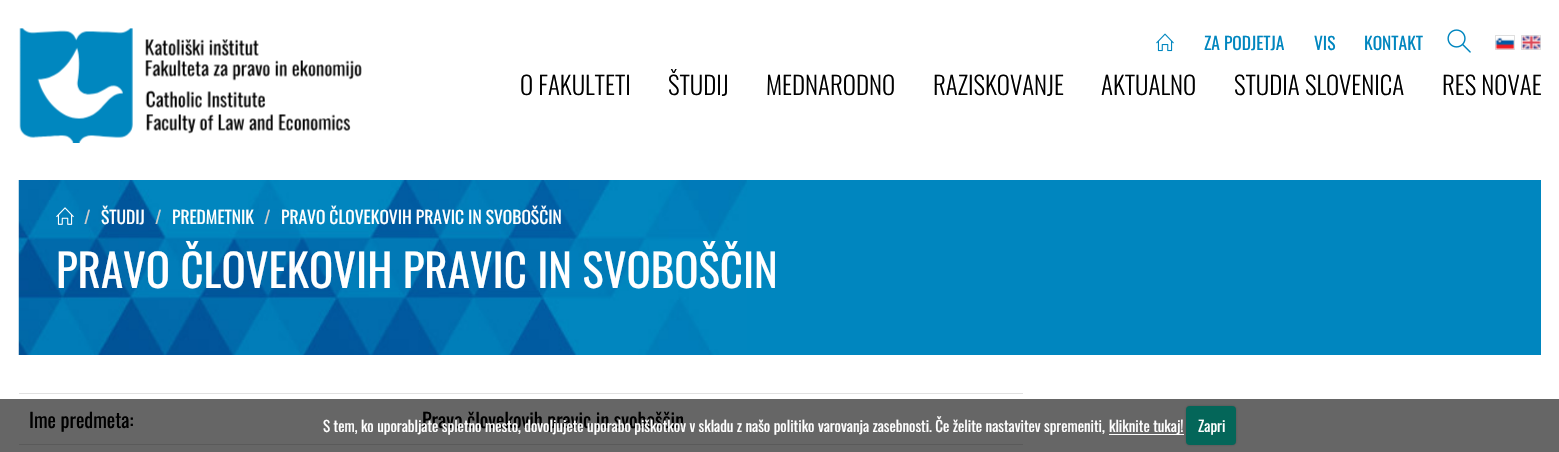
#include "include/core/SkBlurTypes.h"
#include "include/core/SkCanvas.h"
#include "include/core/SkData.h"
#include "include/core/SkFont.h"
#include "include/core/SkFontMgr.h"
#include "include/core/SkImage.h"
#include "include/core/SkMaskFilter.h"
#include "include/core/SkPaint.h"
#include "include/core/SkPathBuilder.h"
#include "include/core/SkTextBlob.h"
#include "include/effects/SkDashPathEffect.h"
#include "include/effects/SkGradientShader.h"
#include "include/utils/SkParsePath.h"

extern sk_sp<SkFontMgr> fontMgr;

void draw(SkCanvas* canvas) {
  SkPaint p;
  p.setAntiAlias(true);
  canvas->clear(SK_ColorWHITE);
  p.setColor(SkColorSetRGB(102, 102, 102));
  canvas->drawRect(SkRect::MakeLTRB(0, 399, 1559, 452), p);
  canvas->drawImageRect(SkImages::DeferredFromEncodedData(SkData::MakeFromFileName("images/1.png")), SkRect::MakeLTRB(19, 28, 362, 143), SkSamplingOptions());
  canvas->drawImageRect(SkImages::DeferredFromEncodedData(SkData::MakeFromFileName("images/2.png")), SkRect::MakeLTRB(1156, 33, 1174, 52), SkSamplingOptions());
  canvas->drawImageRect(SkImages::DeferredFromEncodedData(SkData::MakeFromFileName("images/3.png")), SkRect::MakeLTRB(1447, 29, 1471, 53), SkSamplingOptions());
  p.setStyle(SkPaint::kStroke_Style);
  p.setStrokeWidth(1);
  p.setColor(SkColorSetRGB(223, 223, 223));
  canvas->drawRect(SkRect::MakeLTRB(1495.5f, 35.5f, 1514.5f, 49.5f), p);
  canvas->drawRect(SkRect::MakeLTRB(1521.5f, 35.5f, 1540.5f, 49.5f), p);
  canvas->drawImageRect(SkImages::DeferredFromEncodedData(SkData::MakeFromFileName("images/4.png")), SkRect::MakeLTRB(1495, 37, 1514, 50), SkSamplingOptions());
  canvas->drawImageRect(SkImages::DeferredFromEncodedData(SkData::MakeFromFileName("images/5.png")), SkRect::MakeLTRB(1521, 35, 1541, 50), SkSamplingOptions());
  p.setStyle(SkPaint::kFill_Style);
  p.setColor(SkColorSetRGB(0, 134, 191));
  canvas->drawRect(SkRect::MakeLTRB(747, 180, 1541, 355), p);
  canvas->drawImageRect(SkImages::DeferredFromEncodedData(SkData::MakeFromFileName("images/6.png")), SkRect::MakeLTRB(18, 180, 747, 355), SkSamplingOptions());
  canvas->drawImageRect(SkImages::DeferredFromEncodedData(SkData::MakeFromFileName("images/7.png")), SkRect::MakeLTRB(56, 207, 74, 225), SkSamplingOptions());
  p.setColor(SkColorSetRGB(225, 225, 225));
  canvas->drawRect(SkRect::MakeLTRB(19, 393, 1023, 394), p);
  p.setColor(SkColorSetRGB(90, 90, 90));
  canvas->drawRect(SkRect::MakeLTRB(19, 444, 1023, 445), p);
  p.setColor(SK_ColorWHITE);
  canvas->drawRect(SkRect::MakeLTRB(1109, 434, 1184, 435), p);
  p.setColor(SkColorSetARGB(64, 0, 0, 0));
  p.setMaskFilter(SkMaskFilter::MakeBlur(kNormal_SkBlurStyle, 1));
  canvas->drawRoundRect(SkRect::MakeLTRB(1186, 406, 1236, 445), 4, 4, p);
  p.setMaskFilter(nullptr);
  p.setColor(SkColorSetRGB(4, 102, 89));
  canvas->drawRoundRect(SkRect::MakeLTRB(1186, 406, 1236, 445), 4, 4, p);
  SkFont font1(fontMgr->matchFamilyStyle("Oswald", SkFontStyle::Normal()), 17.5f);
  font1.setSubpixel(true);
  p.setColor(SkColorSetRGB(0, 134, 191));
  canvas->drawString("ZA PODJETJA", 1204, 50, font1, p);
  canvas->drawString("VIS", 1314, 50, font1, p);
  canvas->drawString("KONTAKT", 1364, 50, font1, p);
  SkFont font2(fontMgr->matchFamilyStyle("Oswald", SkFontStyle(300, SkFontStyle::kNormal_Width, SkFontStyle::kUpright_Slant)), 25);
  font2.setSubpixel(true);
  p.setColor(SK_ColorBLACK);
  canvas->drawString("O FAKULTETI", 520, 95, font2, p);
  canvas->drawString("ŠTUDIJ", 668, 95, font2, p);
  canvas->drawString("MEDNARODNO", 766, 95, font2, p);
  canvas->drawString("RAZISKOVANJE", 933, 95, font2, p);
  canvas->drawString("AKTUALNO", 1101, 95, font2, p);
  canvas->drawString("STUDIA SLOVENICA", 1234, 95, font2, p);
  canvas->drawString("RES NOVAE", 1442, 95, font2, p);
  p.setColor(SkColorSetRGB(204, 204, 204));
  canvas->drawString("/", 84, 224, font1, p);
  p.setColor(SK_ColorWHITE);
  canvas->drawString("ŠTUDIJ", 101, 224, font1, p);
  p.setColor(SkColorSetRGB(204, 204, 204));
  canvas->drawString("/", 155, 224, font1, p);
  p.setColor(SK_ColorWHITE);
  canvas->drawString("PREDMETNIK", 172, 224, font1, p);
  p.setColor(SkColorSetRGB(204, 204, 204));
  canvas->drawString("/", 264, 224, font1, p);
  p.setColor(SK_ColorWHITE);
  canvas->drawString("PRAVO ČLOVEKOVIH PRAVIC IN SVOBOŠČIN", 281, 224, font1, p);
  SkFont font3(fontMgr->matchFamilyStyle("Oswald", SkFontStyle::Normal()), 45);
  font3.setSubpixel(true);
  canvas->drawString("PRAVO ČLOVEKOVIH PRAVIC IN SVOBOŠČIN", 56, 288, font3, p);
  SkFont font4(fontMgr->matchFamilyStyle("Oswald", SkFontStyle::Normal()), 20);
  font4.setSubpixel(true);
  p.setColor(SK_ColorBLACK);
  canvas->drawString("Ime predmeta:", 29, 428, font4, p);
  canvas->drawString("Pravo človekovih pravic in svoboščin", 422, 428, font4, p);
  SkFont font5(fontMgr->matchFamilyStyle("Oswald", SkFontStyle::Normal()), 15);
  font5.setSubpixel(true);
  p.setColor(SK_ColorWHITE);
  canvas->drawString("S tem, ko uporabljate spletno mesto, dovoljujete uporabo piškotkov v skladu z našo politiko varovanja zasebnosti. Če želite nastavitev spremeniti,", 323, 432, font5, p);
  canvas->drawString("kliknite tukaj!", 1109, 432, font5, p);
  canvas->drawString("Zapri", 1198, 432, font5, p);
}
